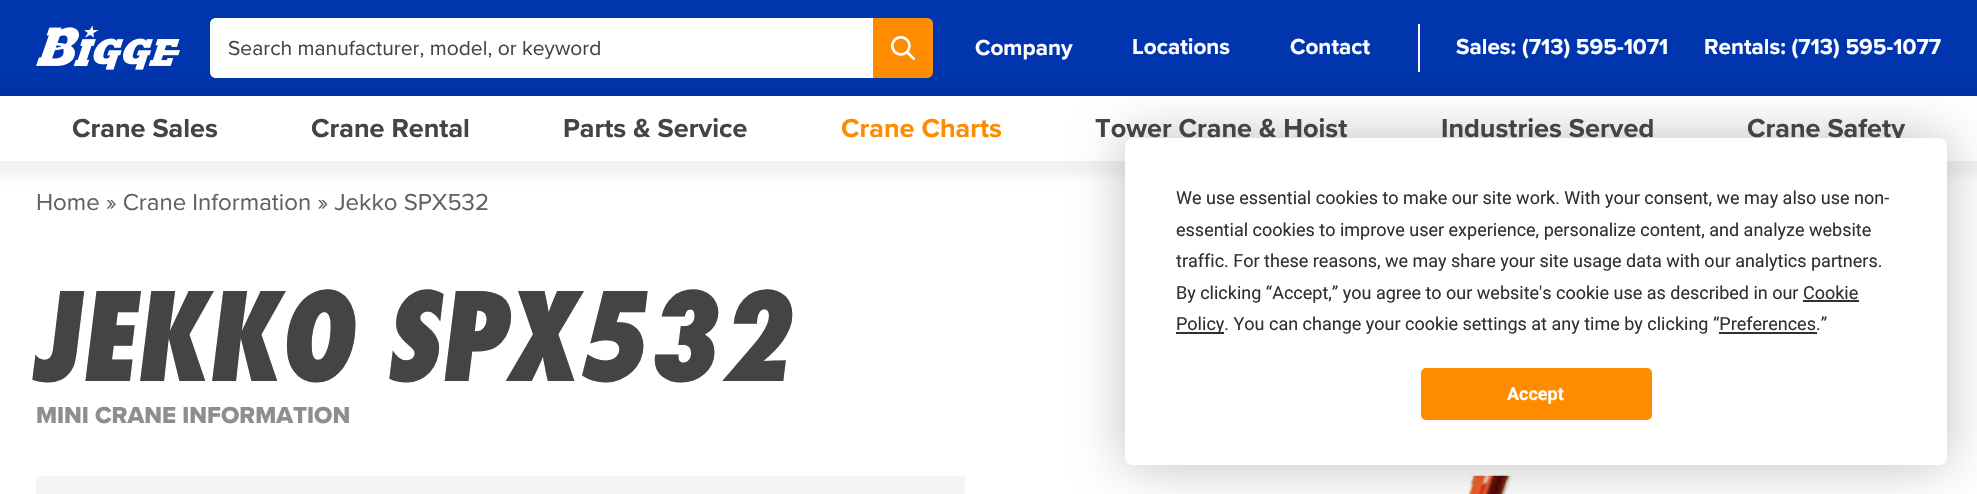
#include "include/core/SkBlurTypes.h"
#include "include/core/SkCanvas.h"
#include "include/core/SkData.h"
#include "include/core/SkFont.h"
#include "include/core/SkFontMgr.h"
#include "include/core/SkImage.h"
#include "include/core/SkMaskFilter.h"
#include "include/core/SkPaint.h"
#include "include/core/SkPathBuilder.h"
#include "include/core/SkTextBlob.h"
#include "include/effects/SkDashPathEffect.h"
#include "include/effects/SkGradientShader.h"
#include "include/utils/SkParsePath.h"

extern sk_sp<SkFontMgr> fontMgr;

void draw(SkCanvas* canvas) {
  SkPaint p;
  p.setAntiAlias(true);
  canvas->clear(SK_ColorWHITE);
  p.setColor(SkColorSetRGB(0, 53, 173));
  canvas->drawRect(SkRect::MakeLTRB(0, 0, 1977, 96), p);
  canvas->drawImageRect(SkImages::DeferredFromEncodedData(SkData::MakeFromFileName("images/1.png")), SkRect::MakeLTRB(36, 25, 180, 70), SkSamplingOptions());
  p.setColor(SK_ColorWHITE);
  canvas->drawPath(SkPathBuilder().moveTo(216, 18).lineTo(873, 18).lineTo(873, 78).lineTo(216, 78).cubicTo(212.5f, 78, 210, 75.5f, 210, 72).lineTo(210, 24).cubicTo(210, 20.5f, 212.5f, 18, 216, 18).close().detach(), p);
  p.setColor(SkColorSetRGB(255, 140, 0));
  canvas->drawPath(SkPathBuilder().moveTo(873, 18).lineTo(927, 18).cubicTo(930.5f, 18, 933, 20.5f, 933, 24).lineTo(933, 72).cubicTo(933, 75.5f, 930.5f, 78, 927, 78).lineTo(873, 78).close().detach(), p);
  canvas->drawImageRect(SkImages::DeferredFromEncodedData(SkData::MakeFromFileName("images/2.png")), SkRect::MakeLTRB(891, 36, 915, 60), SkSamplingOptions());
  p.setColor(SK_ColorWHITE);
  canvas->drawRect(SkRect::MakeLTRB(1418, 24, 1420, 72), p);
  p.setColor(SkColorSetARGB(13, 0, 0, 0));
  p.setMaskFilter(SkMaskFilter::MakeBlur(kNormal_SkBlurStyle, 4.5f));
  canvas->drawRect(SkRect::MakeLTRB(-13, 84, 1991, 176), p);
  p.setMaskFilter(nullptr);
  p.setColor(SK_ColorWHITE);
  canvas->drawRect(SkRect::MakeLTRB(0, 96, 1977, 161), p);
  p.setColor(SkColorSetRGB(245, 245, 245));
  canvas->drawRect(SkRect::MakeLTRB(36, 476, 965, 494), p);
  canvas->drawImageRect(SkImages::DeferredFromEncodedData(SkData::MakeFromFileName("images/3.png")), SkRect::MakeLTRB(1467, 475, 1513, 494), SkSamplingOptions());
  p.setColor(SkColorSetARGB(64, 0, 0, 0));
  p.setMaskFilter(SkMaskFilter::MakeBlur(kNormal_SkBlurStyle, 26));
  canvas->drawRoundRect(SkRect::MakeLTRB(1125, 138, 1947, 465), 8, 8, p);
  p.setMaskFilter(nullptr);
  SkFont font1(fontMgr->matchFamilyStyle("Proxima Nova", SkFontStyle::Normal()), 21);
  font1.setSubpixel(true);
  p.setColor(SkColorSetRGB(68, 68, 68));
  canvas->drawString("Search manufacturer, model, or keyword", 228, 55, font1, p);
  SkFont font2(fontMgr->matchFamilyStyle("Proxima Nova", SkFontStyle::Bold()), 22.5f);
  font2.setSubpixel(true);
  p.setColor(SK_ColorWHITE);
  canvas->drawString("Company", 975, 55, font2, p);
  canvas->drawString("Locations", 1132, 54, font2, p);
  canvas->drawString("Contact", 1290, 54, font2, p);
  canvas->drawString("Sales: (713) 595-1071", 1456, 54, font2, p);
  canvas->drawString("Rentals: (713) 595-1077", 1704, 54, font2, p);
  SkFont font3(fontMgr->matchFamilyStyle("Proxima Nova", SkFontStyle::Bold()), 27);
  font3.setSubpixel(true);
  p.setColor(SkColorSetRGB(68, 68, 68));
  canvas->drawString("Crane Sales", 72, 137, font3, p);
  canvas->drawString("Crane Rental", 311, 137, font3, p);
  canvas->drawString("Parts & Service", 563, 137, font3, p);
  p.setColor(SkColorSetRGB(255, 140, 0));
  canvas->drawString("Crane Charts", 841, 137, font3, p);
  p.setColor(SkColorSetRGB(68, 68, 68));
  canvas->drawString("Tower Crane & Hoist", 1095, 137, font3, p);
  canvas->drawString("Industries Served", 1441, 137, font3, p);
  canvas->drawString("Crane Safety", 1747, 137, font3, p);
  SkFont font4(fontMgr->matchFamilyStyle("Proxima Nova", SkFontStyle::Normal()), 24);
  font4.setSubpixel(true);
  p.setColor(SkColorSetRGB(97, 97, 97));
  canvas->drawString("Home » Crane Information » Jekko SPX532", 36, 210, font4, p);
  SkFont font5(fontMgr->matchFamilyStyle("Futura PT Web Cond", SkFontStyle(800, SkFontStyle::kNormal_Width, SkFontStyle::kItalic_Slant)), 135);
  font5.setSubpixel(true);
  p.setColor(SkColorSetRGB(68, 68, 68));
  canvas->drawString("JEKKO SPX532", 36, 381, font5, p);
  SkFont font6(fontMgr->matchFamilyStyle("Proxima Nova", SkFontStyle(800, SkFontStyle::kNormal_Width, SkFontStyle::kUpright_Slant)), 24);
  font6.setSubpixel(true);
  p.setColor(SkColorSetRGB(142, 142, 142));
  canvas->drawString("MINI CRANE INFORMATION", 36, 423, font6, p);
  p.setColor(SK_ColorWHITE);
  canvas->drawRoundRect(SkRect::MakeLTRB(1125, 138, 1947, 465), 8, 8, p);
  SkFont font7(fontMgr->matchFamilyStyle("Roboto", SkFontStyle::Normal()), 18);
  font7.setSubpixel(true);
  p.setColor(SkColorSetRGB(48, 48, 48));
  canvas->drawString("We use essential cookies to make our site work. With your consent, we may also use non-", 1176, 204, font7, p);
  canvas->drawString("essential cookies to improve user experience, personalize content, and analyze website", 1176, 236, font7, p);
  canvas->drawString("traffic. For these reasons, we may share your site usage data with our analytics partners.", 1176, 267, font7, p);
  canvas->drawString("By clicking “Accept,” you agree to our website's cookie use as described in our Cookie", 1176, 299, font7, p);
  canvas->drawRect(SkRect::MakeLTRB(1803, 300, 1859, 302), p);
  canvas->drawRect(SkRect::MakeLTRB(1176, 332, 1224, 334), p);
  canvas->drawString("Policy. You can change your cookie settings at any time by clicking “Preferences.”", 1176, 330, font7, p);
  canvas->drawRect(SkRect::MakeLTRB(1719, 332, 1817, 334), p);
  p.setColor(SkColorSetRGB(255, 140, 0));
  canvas->drawRoundRect(SkRect::MakeLTRB(1422, 369, 1651, 419), 4, 4, p);
  p.setStyle(SkPaint::kStroke_Style);
  p.setStrokeWidth(2);
  canvas->drawRoundRect(SkRect::MakeLTRB(1422, 369, 1651, 419), 4, 4, p);
  SkFont font8(fontMgr->matchFamilyStyle("Roboto", SkFontStyle::Bold()), 18);
  font8.setSubpixel(true);
  p.setStyle(SkPaint::kFill_Style);
  p.setColor(SK_ColorWHITE);
  canvas->drawString("Accept", 1507, 400, font8, p);
}
